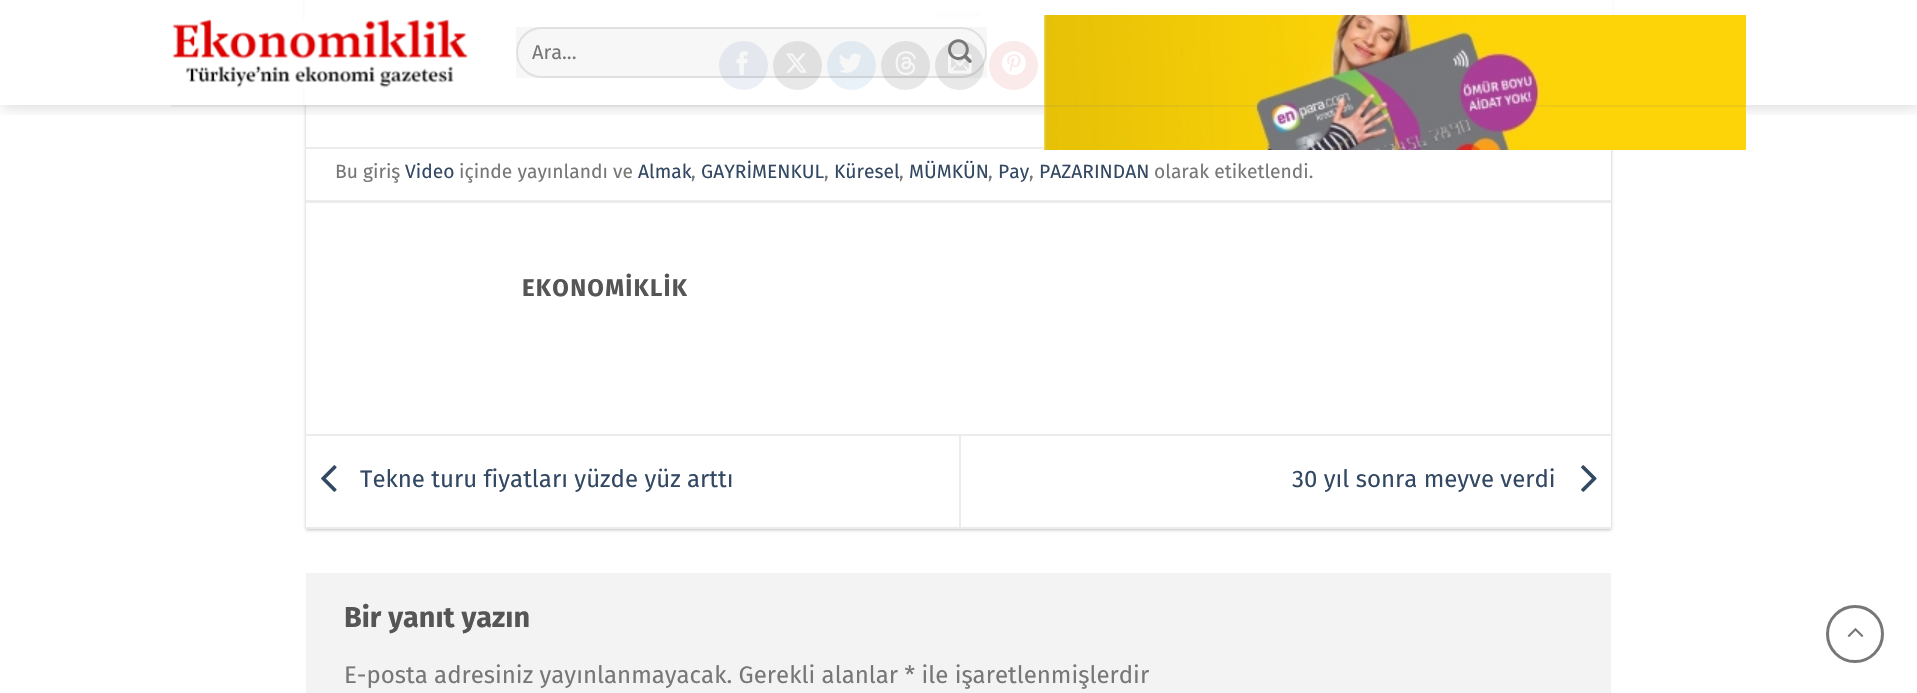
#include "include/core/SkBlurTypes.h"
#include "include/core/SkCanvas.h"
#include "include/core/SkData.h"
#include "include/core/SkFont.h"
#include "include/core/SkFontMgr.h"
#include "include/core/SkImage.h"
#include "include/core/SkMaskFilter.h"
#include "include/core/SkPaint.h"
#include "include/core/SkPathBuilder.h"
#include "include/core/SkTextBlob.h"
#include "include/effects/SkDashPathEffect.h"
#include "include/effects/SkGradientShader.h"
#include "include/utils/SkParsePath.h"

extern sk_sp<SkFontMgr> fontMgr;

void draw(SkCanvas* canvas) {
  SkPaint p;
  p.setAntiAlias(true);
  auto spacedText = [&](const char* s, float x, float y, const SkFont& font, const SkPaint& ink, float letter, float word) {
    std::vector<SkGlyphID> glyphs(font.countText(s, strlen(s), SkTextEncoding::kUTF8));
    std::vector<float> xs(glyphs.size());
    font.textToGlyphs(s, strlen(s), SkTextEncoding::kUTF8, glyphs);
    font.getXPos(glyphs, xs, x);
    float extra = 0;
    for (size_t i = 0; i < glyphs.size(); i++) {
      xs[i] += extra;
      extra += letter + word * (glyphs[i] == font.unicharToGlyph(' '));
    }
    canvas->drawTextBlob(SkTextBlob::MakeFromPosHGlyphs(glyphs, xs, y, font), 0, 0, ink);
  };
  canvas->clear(SK_ColorWHITE);
  canvas->save();
  canvas->clipPath(SkPathBuilder(SkPathFillType::kEvenOdd).moveTo(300, 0).lineTo(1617, 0).lineTo(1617, 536).lineTo(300, 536).close().moveTo(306, -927).lineTo(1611, -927).lineTo(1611, 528).lineTo(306, 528).close().detach(), true);
  p.setColor(SkColorSetARGB(61, 0, 0, 0));
  p.setMaskFilter(SkMaskFilter::MakeBlur(kNormal_SkBlurStyle, 1.5f));
  canvas->drawRect(SkRect::MakeLTRB(306, -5, 1611, 530), p);
  p.setMaskFilter(nullptr);
  canvas->restore();
  p.setColor(SkColorSetRGB(230, 230, 230));
  canvas->drawRect(SkRect::MakeLTRB(936, 12, 981, 17), p);
  p.setColor(SkColorSetRGB(58, 88, 157));
  canvas->drawCircle(743.5f, 65.5f, 23.5f, p);
  p.setStyle(SkPaint::kStroke_Style);
  p.setStrokeWidth(2);
  canvas->drawCircle(743.5f, 65.5f, 23.5f, p);
  canvas->drawImageRect(SkImages::DeferredFromEncodedData(SkData::MakeFromFileName("images/4.png")), SkRect::MakeLTRB(736, 51, 748, 75), SkSamplingOptions());
  p.setStyle(SkPaint::kFill_Style);
  p.setColor(SkColorSetRGB(17, 17, 17));
  canvas->drawCircle(797.5f, 65.5f, 23.5f, p);
  p.setStyle(SkPaint::kStroke_Style);
  canvas->drawCircle(797.5f, 65.5f, 23.5f, p);
  canvas->drawImageRect(SkImages::DeferredFromEncodedData(SkData::MakeFromFileName("images/5.png")), SkRect::MakeLTRB(785, 53, 807, 73), SkSamplingOptions());
  p.setStyle(SkPaint::kFill_Style);
  p.setColor(SkColorSetRGB(36, 120, 186));
  canvas->drawCircle(851.5f, 65.5f, 23.5f, p);
  p.setStyle(SkPaint::kStroke_Style);
  canvas->drawCircle(851.5f, 65.5f, 23.5f, p);
  canvas->drawImageRect(SkImages::DeferredFromEncodedData(SkData::MakeFromFileName("images/6.png")), SkRect::MakeLTRB(838, 53, 863, 73), SkSamplingOptions());
  p.setStyle(SkPaint::kFill_Style);
  p.setColor(SkColorSetRGB(17, 17, 17));
  canvas->drawCircle(905.5f, 65.5f, 23.5f, p);
  p.setStyle(SkPaint::kStroke_Style);
  canvas->drawCircle(905.5f, 65.5f, 23.5f, p);
  canvas->drawImageRect(SkImages::DeferredFromEncodedData(SkData::MakeFromFileName("images/7.png")), SkRect::MakeLTRB(895, 51, 916, 75), SkSamplingOptions());
  p.setStyle(SkPaint::kFill_Style);
  canvas->drawCircle(959.5f, 65.5f, 23.5f, p);
  p.setStyle(SkPaint::kStroke_Style);
  canvas->drawCircle(959.5f, 65.5f, 23.5f, p);
  canvas->drawImageRect(SkImages::DeferredFromEncodedData(SkData::MakeFromFileName("images/8.png")), SkRect::MakeLTRB(948, 54, 972, 74), SkSamplingOptions());
  p.setStyle(SkPaint::kFill_Style);
  p.setColor(SkColorSetRGB(203, 35, 32));
  canvas->drawCircle(1013.5f, 65.5f, 23.5f, p);
  p.setStyle(SkPaint::kStroke_Style);
  canvas->drawCircle(1013.5f, 65.5f, 23.5f, p);
  canvas->drawImageRect(SkImages::DeferredFromEncodedData(SkData::MakeFromFileName("images/9.png")), SkRect::MakeLTRB(1002, 51, 1026, 75), SkSamplingOptions());
  canvas->save();
  canvas->clipRect(SkRect::MakeLTRB(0, 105, 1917, 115));
  p.setStyle(SkPaint::kFill_Style);
  p.setColor(SkColorSetARGB(38, 0, 0, 0));
  p.setMaskFilter(SkMaskFilter::MakeBlur(kNormal_SkBlurStyle, 7.5f));
  canvas->drawRect(SkRect::MakeLTRB(2, 2, 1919, 107), p);
  p.setMaskFilter(nullptr);
  canvas->restore();
  p.setColor(SkColorSetARGB(230, 255, 255, 255));
  canvas->drawRect(SkRect::MakeLTRB(304, 0, 1613, 105), p);
  canvas->drawImageRect(SkImages::DeferredFromEncodedData(SkData::MakeFromFileName("images/1.png")), SkRect::MakeLTRB(173, 19, 468, 88), SkSamplingOptions());
  p.setColor(SkColorSetARGB(8, 0, 0, 0));
  canvas->drawRect(SkRect::MakeLTRB(516, 27, 987, 78), p);
  p.setStyle(SkPaint::kStroke_Style);
  p.setColor(SkColorSetARGB(23, 0, 0, 0));
  canvas->drawRoundRect(SkRect::MakeLTRB(517, 28, 986, 77), 24.5f, 24.5f, p);
  canvas->drawImageRect(SkImages::DeferredFromEncodedData(SkData::MakeFromFileName("images/2.png")), SkRect::MakeLTRB(948, 39, 972, 63), SkSamplingOptions());
  canvas->drawImageRect(SkImages::DeferredFromEncodedData(SkData::MakeFromFileName("images/3.png")), SkRect::MakeLTRB(1044, 15, 1746, 150), SkSamplingOptions());
  p.setStyle(SkPaint::kFill_Style);
  p.setColor(SkColorSetARGB(26, 119, 119, 119));
  canvas->drawRect(SkRect::MakeLTRB(171, 105, 1746, 107), p);
  p.setColor(SkColorSetRGB(236, 236, 236));
  canvas->drawRect(SkRect::MakeLTRB(306, 147, 1044, 149), p);
  canvas->drawRect(SkRect::MakeLTRB(306, 200, 1611, 203), p);
  canvas->drawRect(SkRect::MakeLTRB(306, 434, 1611, 436), p);
  canvas->drawRect(SkRect::MakeLTRB(306, 527, 1611, 529), p);
  canvas->drawImageRect(SkImages::DeferredFromEncodedData(SkData::MakeFromFileName("images/10.png")), SkRect::MakeLTRB(321, 465, 337, 492), SkSamplingOptions());
  canvas->drawRect(SkRect::MakeLTRB(959, 435, 961, 527), p);
  canvas->drawImageRect(SkImages::DeferredFromEncodedData(SkData::MakeFromFileName("images/11.png")), SkRect::MakeLTRB(1581, 465, 1597, 492), SkSamplingOptions());
  p.setColor(SkColorSetRGB(243, 243, 243));
  canvas->drawRect(SkRect::MakeLTRB(306, 573, 1611, 693), p);
  p.setStyle(SkPaint::kStroke_Style);
  p.setStrokeWidth(3);
  p.setColor(SkColorSetRGB(119, 119, 119));
  canvas->drawCircle(1855, 634, 27.5f, p);
  canvas->drawImageRect(SkImages::DeferredFromEncodedData(SkData::MakeFromFileName("images/12.png")), SkRect::MakeLTRB(1847, 628, 1864, 637), SkSamplingOptions());
  SkFont font1(fontMgr->matchFamilyStyle("Fira Sans", SkFontStyle::Normal()), 20);
  font1.setSubpixel(true);
  p.setStyle(SkPaint::kFill_Style);
  canvas->drawString("Ara...", 532, 59, font1, p);
  SkFont font2(fontMgr->matchFamilyStyle("Fira Sans", SkFontStyle::Normal()), 19.25f);
  font2.setSubpixel(true);
  canvas->drawString("Bu giriş", 335, 178, font2, p);
  p.setColor(SkColorSetRGB(51, 72, 98));
  canvas->drawString("Video", 405, 178, font2, p);
  p.setColor(SkColorSetRGB(119, 119, 119));
  canvas->drawString("içinde yayınlandı ve", 459, 178, font2, p);
  p.setColor(SkColorSetRGB(51, 72, 98));
  canvas->drawString("Almak", 638, 178, font2, p);
  p.setColor(SkColorSetRGB(119, 119, 119));
  canvas->drawString(",", 691, 178, font2, p);
  p.setColor(SkColorSetRGB(51, 72, 98));
  canvas->drawString("GAYRİMENKUL", 701, 178, font2, p);
  p.setColor(SkColorSetRGB(119, 119, 119));
  canvas->drawString(",", 824, 178, font2, p);
  p.setColor(SkColorSetRGB(51, 72, 98));
  canvas->drawString("Küresel", 834, 178, font2, p);
  p.setColor(SkColorSetRGB(119, 119, 119));
  canvas->drawString(",", 899, 178, font2, p);
  p.setColor(SkColorSetRGB(51, 72, 98));
  canvas->drawString("MÜMKÜN", 909, 178, font2, p);
  p.setColor(SkColorSetRGB(119, 119, 119));
  canvas->drawString(",", 988, 178, font2, p);
  p.setColor(SkColorSetRGB(51, 72, 98));
  canvas->drawString("Pay", 998, 178, font2, p);
  p.setColor(SkColorSetRGB(119, 119, 119));
  canvas->drawString(",", 1029, 178, font2, p);
  p.setColor(SkColorSetRGB(51, 72, 98));
  canvas->drawString("PAZARINDAN", 1039, 178, font2, p);
  p.setColor(SkColorSetRGB(119, 119, 119));
  canvas->drawString("olarak etiketlendi.", 1154, 178, font2, p);
  SkFont font3(fontMgr->matchFamilyStyle("Fira Sans", SkFontStyle::Bold()), 24);
  font3.setSubpixel(true);
  p.setColor(SkColorSetRGB(85, 85, 85));
  spacedText("EKONOMİKLİK", 522, 296, font3, p, 1.25f, 0);
  SkFont font4(fontMgr->matchFamilyStyle("Fira Sans", SkFontStyle::Normal()), 24);
  font4.setSubpixel(true);
  p.setColor(SkColorSetRGB(51, 72, 98));
  canvas->drawString("Tekne turu fiyatları yüzde yüz arttı", 360, 487, font4, p);
  canvas->drawString("30 yıl sonra meyve verdi", 1292, 487, font4, p);
  SkFont font5(fontMgr->matchFamilyStyle("Fira Sans", SkFontStyle::Bold()), 28.75f);
  font5.setSubpixel(true);
  p.setColor(SkColorSetRGB(85, 85, 85));
  canvas->drawString("Bir yanıt yazın", 344, 627, font5, p);
  p.setColor(SkColorSetRGB(119, 119, 119));
  canvas->drawString("E-posta adresiniz yayınlanmayacak. Gerekli alanlar * ile işaretlenmişlerdir", 344, 683, font4, p);
}
